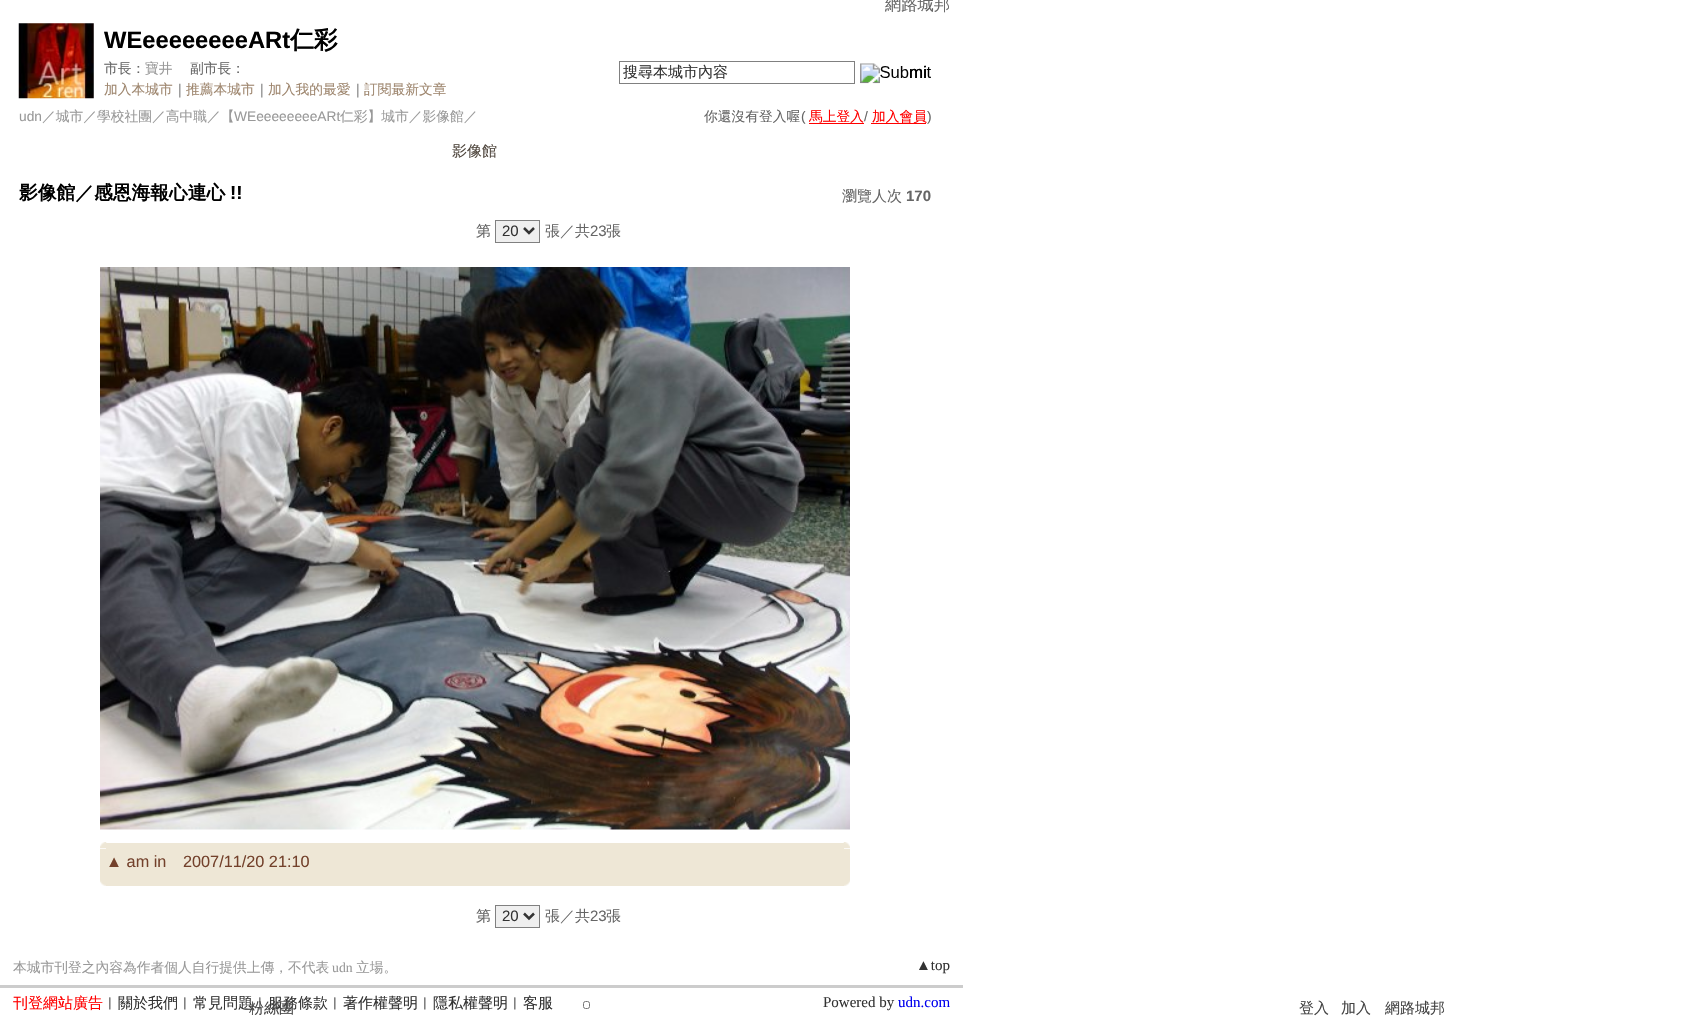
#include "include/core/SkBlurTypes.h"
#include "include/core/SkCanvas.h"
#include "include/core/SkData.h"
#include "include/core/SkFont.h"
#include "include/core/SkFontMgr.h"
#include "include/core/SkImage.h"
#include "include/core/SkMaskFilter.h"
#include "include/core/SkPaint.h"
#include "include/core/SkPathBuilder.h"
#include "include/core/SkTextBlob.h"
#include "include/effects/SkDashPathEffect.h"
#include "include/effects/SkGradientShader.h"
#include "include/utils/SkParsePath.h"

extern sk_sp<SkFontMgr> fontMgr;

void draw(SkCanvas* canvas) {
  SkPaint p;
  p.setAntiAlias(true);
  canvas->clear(SK_ColorWHITE);
  canvas->drawImageRect(SkImages::DeferredFromEncodedData(SkData::MakeFromFileName("images/1.png")), SkRect::MakeLTRB(18, 23, 94, 99), SkSamplingOptions());
  p.setStyle(SkPaint::kStroke_Style);
  p.setStrokeWidth(1);
  p.setColor(SkColorSetRGB(128, 128, 128));
  canvas->drawRect(SkRect::MakeLTRB(619.5f, 61.5f, 854.5f, 83.5f), p);
  canvas->drawImageRect(SkImages::DeferredFromEncodedData(SkData::MakeFromFileName("images/2.png")), SkRect::MakeLTRB(860, 63, 931, 84), SkSamplingOptions());
  p.setStyle(SkPaint::kFill_Style);
  p.setColor(SkColorSetRGB(255, 0, 0));
  canvas->drawRect(SkRect::MakeLTRB(809, 123, 864, 124), p);
  canvas->drawRect(SkRect::MakeLTRB(871, 123, 926, 124), p);
  p.setColor(SkColorSetRGB(239, 239, 239));
  canvas->drawRect(SkRect::MakeLTRB(495.5f, 220.5f, 539.5f, 242.5f), p);
  p.setStyle(SkPaint::kStroke_Style);
  p.setColor(SkColorSetRGB(128, 128, 128));
  canvas->drawRect(SkRect::MakeLTRB(495.5f, 220.5f, 539.5f, 242.5f), p);
  p.setStrokeWidth(2.5f);
  p.setColor(SkColorSetRGB(51, 51, 51));
  canvas->drawPath(SkPathBuilder().moveTo(524, 228).lineTo(529, 233).lineTo(534, 228).detach(), p);
  canvas->drawImageRect(SkImages::DeferredFromEncodedData(SkData::MakeFromFileName("images/3.png")), SkRect::MakeLTRB(100, 267, 850, 830), SkSamplingOptions());
  p.setStyle(SkPaint::kFill_Style);
  p.setColor(SkColorSetRGB(238, 231, 214));
  canvas->drawRect(SkRect::MakeLTRB(106, 843, 844, 849), p);
  canvas->drawImageRect(SkImages::DeferredFromEncodedData(SkData::MakeFromFileName("images/4.png")), SkRect::MakeLTRB(100, 842, 107, 849), SkSamplingOptions());
  canvas->drawImageRect(SkImages::DeferredFromEncodedData(SkData::MakeFromFileName("images/5.png")), SkRect::MakeLTRB(843, 842, 850, 849), SkSamplingOptions());
  canvas->drawRect(SkRect::MakeLTRB(100, 849, 850, 880), p);
  canvas->drawImageRect(SkImages::DeferredFromEncodedData(SkData::MakeFromFileName("images/6.png")), SkRect::MakeLTRB(100, 880, 106, 886), SkSamplingOptions());
  canvas->drawRect(SkRect::MakeLTRB(106, 880, 844, 886), p);
  canvas->drawImageRect(SkImages::DeferredFromEncodedData(SkData::MakeFromFileName("images/7.png")), SkRect::MakeLTRB(844, 880, 850, 886), SkSamplingOptions());
  p.setColor(SkColorSetRGB(239, 239, 239));
  canvas->drawRect(SkRect::MakeLTRB(495.5f, 905.5f, 539.5f, 927.5f), p);
  p.setStyle(SkPaint::kStroke_Style);
  p.setStrokeWidth(1);
  p.setColor(SkColorSetRGB(128, 128, 128));
  canvas->drawRect(SkRect::MakeLTRB(495.5f, 905.5f, 539.5f, 927.5f), p);
  p.setStrokeWidth(2.5f);
  p.setColor(SkColorSetRGB(51, 51, 51));
  canvas->drawPath(SkPathBuilder().moveTo(524, 913.5f).lineTo(529, 918.5f).lineTo(534, 913.5f).detach(), p);
  p.setStyle(SkPaint::kFill_Style);
  p.setColor(SkColorSetRGB(204, 204, 204));
  canvas->drawRect(SkRect::MakeLTRB(0, 985, 963, 988), p);
  p.setStyle(SkPaint::kStroke_Style);
  p.setStrokeWidth(1);
  p.setColor(SkColorSetRGB(118, 118, 118));
  canvas->drawRoundRect(SkRect::MakeLTRB(583.5f, 1001.5f, 589.5f, 1008.5f), 2, 2, p);
  SkFont font1(fontMgr->matchFamilyStyle("WenQuanYi Zen Hei", SkFontStyle(500, SkFontStyle::kNormal_Width, SkFontStyle::kUpright_Slant)), 16.25f);
  font1.setSubpixel(true);
  p.setStyle(SkPaint::kFill_Style);
  p.setColor(SkColorSetRGB(102, 102, 102));
  canvas->drawString("網路城邦", 885, 10, font1, p);
  SkFont font2(fontMgr->matchFamilyStyle("Liberation Sans", SkFontStyle::Bold()), 23.75f);
  font2.setSubpixel(true);
  p.setColor(SK_ColorBLACK);
  canvas->drawString("WEeeeeeeeeARt", 104, 48, font2, p);
  SkFont font3(fontMgr->matchFamilyStyle("WenQuanYi Zen Hei", SkFontStyle::Bold()), 23.75f);
  font3.setSubpixel(true);
  canvas->drawString("仁彩", 290, 48, font3, p);
  SkFont font4(fontMgr->matchFamilyStyle("WenQuanYi Zen Hei", SkFontStyle(500, SkFontStyle::kNormal_Width, SkFontStyle::kUpright_Slant)), 13.75f);
  font4.setSubpixel(true);
  p.setColor(SkColorSetRGB(102, 102, 102));
  canvas->drawString("市長：", 104, 73, font4, p);
  p.setColor(SkColorSetRGB(153, 153, 153));
  canvas->drawString("寶井", 145, 73, font4, p);
  p.setColor(SkColorSetRGB(102, 102, 102));
  canvas->drawString("副市長：", 190, 73, font4, p);
  p.setColor(SkColorSetRGB(158, 134, 110));
  canvas->drawString("加入本城市", 104, 94, font4, p);
  p.setColor(SkColorSetRGB(102, 102, 102));
  canvas->drawString("｜", 173, 94, font4, p);
  p.setColor(SkColorSetRGB(158, 134, 110));
  canvas->drawString("推薦本城市", 186, 94, font4, p);
  p.setColor(SkColorSetRGB(102, 102, 102));
  canvas->drawString("｜", 255, 94, font4, p);
  p.setColor(SkColorSetRGB(158, 134, 110));
  canvas->drawString("加入我的最愛", 268, 94, font4, p);
  p.setColor(SkColorSetRGB(102, 102, 102));
  canvas->drawString("｜", 351, 94, font4, p);
  p.setColor(SkColorSetRGB(158, 134, 110));
  canvas->drawString("訂閱最新文章", 364, 94, font4, p);
  SkFont font5(fontMgr->matchFamilyStyle("WenQuanYi Zen Hei", SkFontStyle(500, SkFontStyle::kNormal_Width, SkFontStyle::kUpright_Slant)), 15);
  font5.setSubpixel(true);
  p.setColor(SkColorSetRGB(51, 51, 51));
  canvas->drawString("搜尋本城市內容", 623, 77, font5, p);
  SkFont font6(fontMgr->matchFamilyStyle("Liberation Sans", SkFontStyle::Normal()), 17);
  font6.setSubpixel(true);
  p.setColor(SK_ColorBLACK);
  canvas->drawString("mi", 909, 78, font6, p);
  SkFont font7(fontMgr->matchFamilyStyle("Liberation Sans", SkFontStyle::Normal()), 13.75f);
  font7.setSubpixel(true);
  p.setColor(SkColorSetRGB(153, 153, 153));
  canvas->drawString("udn", 19, 121, font7, p);
  canvas->drawString("／城市／學校社團／高中職／【", 42, 121, font4, p);
  canvas->drawString("WEeeeeeeeeARt", 234, 121, font7, p);
  canvas->drawString("仁彩】城市／影像館／", 340, 121, font4, p);
  p.setColor(SkColorSetRGB(102, 102, 102));
  canvas->drawString("你還沒有登入喔", 704, 121, font4, p);
  canvas->drawString("(", 801, 121, font7, p);
  p.setColor(SkColorSetRGB(255, 0, 0));
  canvas->drawString("馬上登入", 809, 121, font4, p);
  p.setColor(SkColorSetRGB(102, 102, 102));
  canvas->drawString("/", 864, 121, font7, p);
  p.setColor(SkColorSetRGB(255, 0, 0));
  canvas->drawString("加入會員", 872, 121, font4, p);
  p.setColor(SkColorSetRGB(102, 102, 102));
  canvas->drawString(")", 927, 121, font7, p);
  p.setColor(SkColorSetRGB(80, 71, 62));
  canvas->drawString("影像館", 452, 156, font5, p);
  SkFont font8(fontMgr->matchFamilyStyle("WenQuanYi Zen Hei", SkFontStyle::Bold()), 18.75f);
  font8.setSubpixel(true);
  p.setColor(SK_ColorBLACK);
  canvas->drawString("影像館／感恩海報心連心", 19, 199, font8, p);
  SkFont font9(fontMgr->matchFamilyStyle("Liberation Sans", SkFontStyle::Bold()), 18.75f);
  font9.setSubpixel(true);
  canvas->drawString("!!", 230, 199, font9, p);
  p.setColor(SkColorSetRGB(102, 102, 102));
  canvas->drawString("瀏覽人次", 842, 201, font5, p);
  SkFont font10(fontMgr->matchFamilyStyle("Liberation Sans", SkFontStyle::Bold()), 15);
  font10.setSubpixel(true);
  canvas->drawString("170", 906, 201, font10, p);
  canvas->drawString("第", 476, 236, font5, p);
  SkFont font11(fontMgr->matchFamilyStyle("Liberation Sans", SkFontStyle::Normal()), 15);
  font11.setSubpixel(true);
  p.setColor(SkColorSetRGB(51, 51, 51));
  canvas->drawString("20", 502, 236, font11, p);
  p.setColor(SkColorSetRGB(102, 102, 102));
  canvas->drawString("張／共", 545, 236, font5, p);
  canvas->drawString("23", 590, 236, font11, p);
  canvas->drawString("張", 606, 236, font5, p);
  SkFont font12(fontMgr->matchFamilyStyle("Liberation Sans", SkFontStyle::Normal()), 16.25f);
  font12.setSubpixel(true);
  p.setColor(SkColorSetRGB(115, 65, 43));
  canvas->drawString("▲ am in", 106, 867, font12, p);
  canvas->drawString("2007/11/20 21:10", 183, 867, font12, p);
  p.setColor(SkColorSetRGB(102, 102, 102));
  canvas->drawString("第", 476, 921, font5, p);
  p.setColor(SkColorSetRGB(51, 51, 51));
  canvas->drawString("20", 502, 921, font11, p);
  p.setColor(SkColorSetRGB(102, 102, 102));
  canvas->drawString("張／共", 545, 921, font5, p);
  canvas->drawString("23", 590, 921, font11, p);
  canvas->drawString("張", 606, 921, font5, p);
  p.setColor(SkColorSetRGB(153, 153, 153));
  canvas->drawString("本城市刊登之內容為作者個人自行提供上傳，不代表", 13, 972, font4, p);
  SkFont font13(fontMgr->matchFamilyStyle("Liberation Serif", SkFontStyle::Normal()), 13.75f);
  font13.setSubpixel(true);
  canvas->drawString("udn", 332, 972, font13, p);
  canvas->drawString("立場。", 356, 972, font4, p);
  SkFont font14(fontMgr->matchFamilyStyle("Liberation Serif", SkFontStyle::Normal()), 15);
  font14.setSubpixel(true);
  p.setColor(SkColorSetRGB(51, 51, 51));
  canvas->drawString("▲top", 916, 970, font14, p);
  p.setColor(SkColorSetRGB(255, 0, 0));
  canvas->drawString("刊登網站廣告", 13, 1008, font5, p);
  p.setColor(SK_ColorBLACK);
  canvas->drawString("︱", 103, 1008, font5, p);
  p.setColor(SkColorSetRGB(51, 51, 51));
  canvas->drawString("關於我們", 118, 1008, font5, p);
  p.setColor(SK_ColorBLACK);
  canvas->drawString("︱", 178, 1008, font5, p);
  p.setColor(SkColorSetRGB(51, 51, 51));
  canvas->drawString("常見問題", 193, 1008, font5, p);
  p.setColor(SK_ColorBLACK);
  canvas->drawString("︱", 253, 1008, font5, p);
  p.setColor(SkColorSetRGB(51, 51, 51));
  canvas->drawString("服務條款", 268, 1008, font5, p);
  p.setColor(SK_ColorBLACK);
  canvas->drawString("︱", 328, 1008, font5, p);
  p.setColor(SkColorSetRGB(51, 51, 51));
  canvas->drawString("著作權聲明", 343, 1008, font5, p);
  p.setColor(SK_ColorBLACK);
  canvas->drawString("︱", 418, 1008, font5, p);
  p.setColor(SkColorSetRGB(51, 51, 51));
  canvas->drawString("隱私權聲明", 433, 1008, font5, p);
  p.setColor(SK_ColorBLACK);
  canvas->drawString("︱", 508, 1008, font5, p);
  p.setColor(SkColorSetRGB(51, 51, 51));
  canvas->drawString("客服", 523, 1008, font5, p);
  canvas->drawString("Powered by", 823, 1007, font14, p);
  p.setColor(SkColorSetRGB(0, 0, 238));
  canvas->drawString("udn.com", 898, 1007, font14, p);
  p.setColor(SkColorSetRGB(68, 68, 68));
  canvas->drawString("粉絲團", 249, 1013, font5, p);
  canvas->drawString("登入", 1299, 1013, font5, p);
  canvas->drawString("加入", 1341, 1013, font5, p);
  canvas->drawString("網路城邦", 1385, 1013, font5, p);
}
